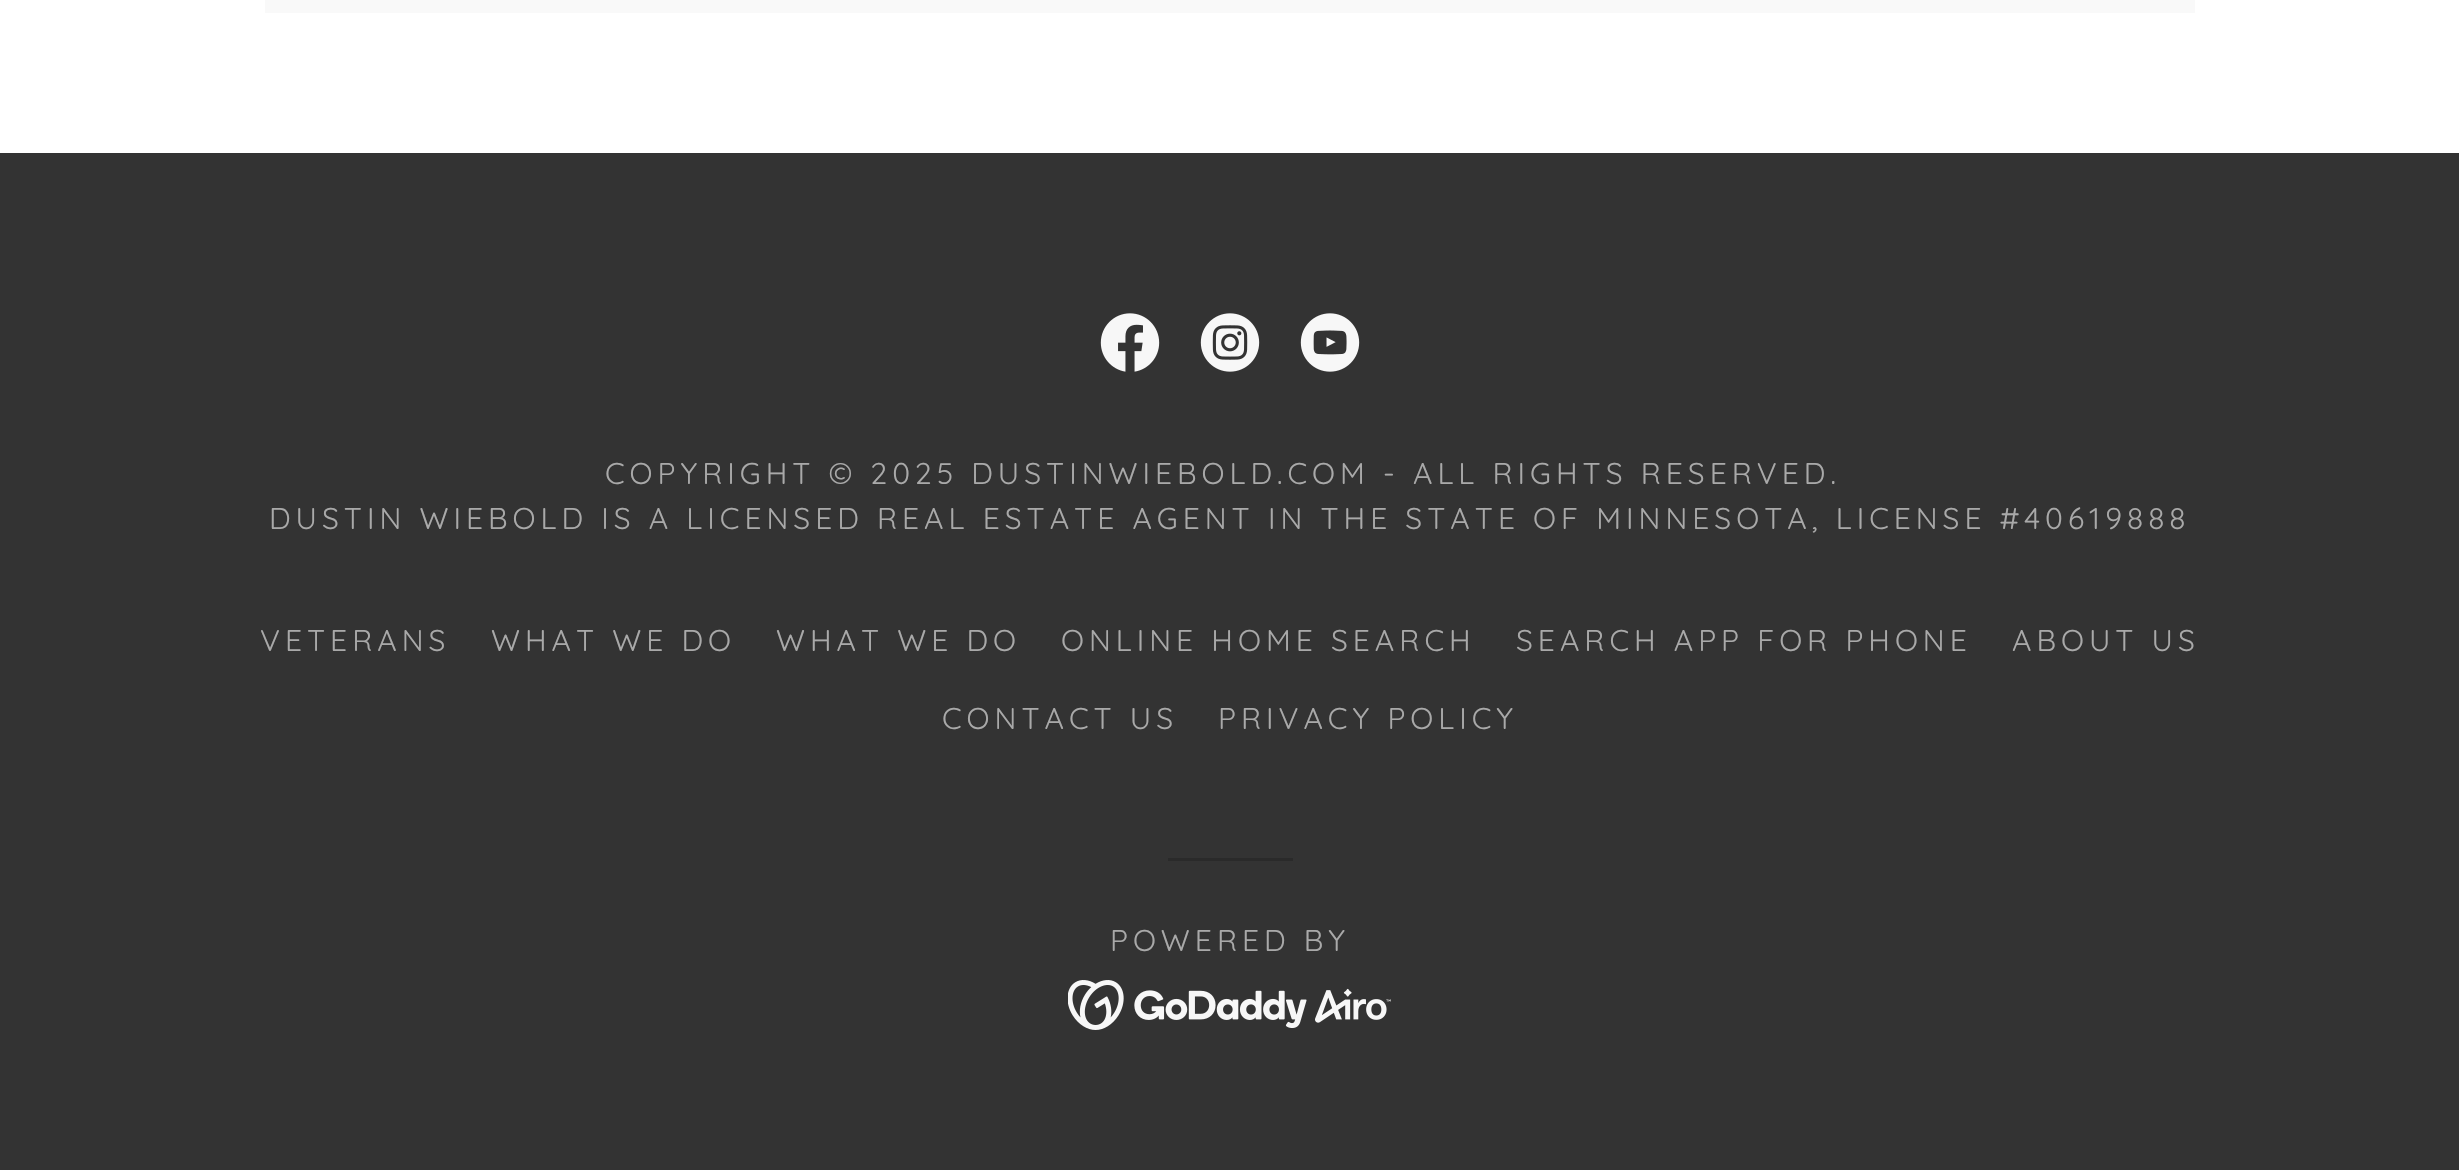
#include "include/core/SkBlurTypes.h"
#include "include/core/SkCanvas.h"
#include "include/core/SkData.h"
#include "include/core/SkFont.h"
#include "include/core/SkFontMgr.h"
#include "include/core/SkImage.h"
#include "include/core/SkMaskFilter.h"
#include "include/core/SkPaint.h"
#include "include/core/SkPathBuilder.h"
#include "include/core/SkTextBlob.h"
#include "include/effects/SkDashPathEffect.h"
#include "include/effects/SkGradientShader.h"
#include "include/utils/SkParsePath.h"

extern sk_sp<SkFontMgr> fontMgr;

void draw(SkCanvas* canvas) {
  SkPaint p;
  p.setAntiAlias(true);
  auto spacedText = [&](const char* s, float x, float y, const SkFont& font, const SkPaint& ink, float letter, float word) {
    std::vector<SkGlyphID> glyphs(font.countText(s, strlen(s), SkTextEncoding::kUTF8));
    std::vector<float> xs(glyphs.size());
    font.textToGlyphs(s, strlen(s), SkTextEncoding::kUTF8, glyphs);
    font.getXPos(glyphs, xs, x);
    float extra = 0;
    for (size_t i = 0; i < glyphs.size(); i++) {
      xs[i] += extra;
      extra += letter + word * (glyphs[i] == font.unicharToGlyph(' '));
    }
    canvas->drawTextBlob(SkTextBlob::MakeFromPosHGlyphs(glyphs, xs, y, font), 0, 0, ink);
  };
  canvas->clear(SkColorSetRGB(51, 51, 51));
  p.setColor(SK_ColorWHITE);
  canvas->drawRect(SkRect::MakeLTRB(0, 0, 2459, 153), p);
  p.setColor(SkColorSetRGB(249, 249, 249));
  canvas->drawRect(SkRect::MakeLTRB(265, 0, 2195, 13), p);
  canvas->drawImageRect(SkImages::DeferredFromEncodedData(SkData::MakeFromFileName("images/1.png")), SkRect::MakeLTRB(1100, 313, 1160, 372), SkSamplingOptions());
  canvas->drawImageRect(SkImages::DeferredFromEncodedData(SkData::MakeFromFileName("images/2.png")), SkRect::MakeLTRB(1200, 313, 1260, 372), SkSamplingOptions());
  canvas->drawImageRect(SkImages::DeferredFromEncodedData(SkData::MakeFromFileName("images/3.png")), SkRect::MakeLTRB(1300, 313, 1360, 372), SkSamplingOptions());
  p.setColor(SkColorSetRGB(42, 42, 42));
  canvas->drawRect(SkRect::MakeLTRB(1168, 858, 1293, 861), p);
  canvas->drawImageRect(SkImages::DeferredFromEncodedData(SkData::MakeFromFileName("images/4.png")), SkRect::MakeLTRB(1068, 980, 1391, 1030), SkSamplingOptions());
  SkFont font1(fontMgr->matchFamilyStyle("Quicksand", SkFontStyle::Normal()), 30);
  font1.setSubpixel(true);
  p.setColor(SkColorSetRGB(169, 169, 169));
  spacedText("COPYRIGHT © 2025 DUSTINWIEBOLD.COM - ALL RIGHTS RESERVED.", 605, 484, font1, p, 5, 0);
  spacedText("DUSTIN WIEBOLD IS A LICENSED REAL ESTATE AGENT IN THE STATE OF MINNESOTA, LICENSE #40619888", 269, 529, font1, p, 5, 0);
  spacedText("VETERANS", 260, 651, font1, p, 5, 0);
  spacedText("WHAT WE DO", 491, 651, font1, p, 5, 0);
  spacedText("WHAT WE DO", 776, 651, font1, p, 5, 0);
  spacedText("ONLINE HOME SEARCH", 1061, 651, font1, p, 5, 0);
  spacedText("SEARCH APP FOR PHONE", 1516, 651, font1, p, 5, 0);
  spacedText("ABOUT US", 2012, 651, font1, p, 5, 0);
  spacedText("CONTACT US", 942, 729, font1, p, 5, 0);
  spacedText("PRIVACY POLICY", 1218, 729, font1, p, 5, 0);
  spacedText("POWERED BY", 1110, 951, font1, p, 5, 0);
}
